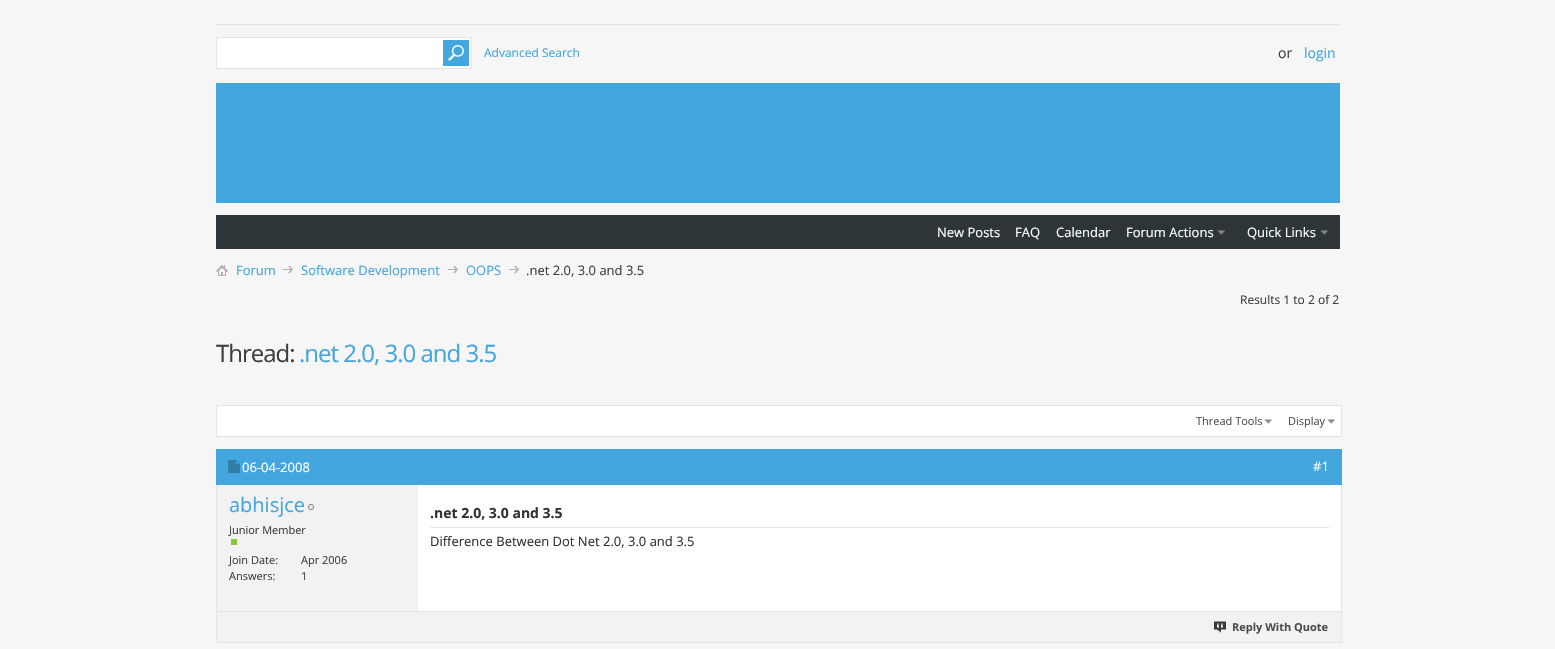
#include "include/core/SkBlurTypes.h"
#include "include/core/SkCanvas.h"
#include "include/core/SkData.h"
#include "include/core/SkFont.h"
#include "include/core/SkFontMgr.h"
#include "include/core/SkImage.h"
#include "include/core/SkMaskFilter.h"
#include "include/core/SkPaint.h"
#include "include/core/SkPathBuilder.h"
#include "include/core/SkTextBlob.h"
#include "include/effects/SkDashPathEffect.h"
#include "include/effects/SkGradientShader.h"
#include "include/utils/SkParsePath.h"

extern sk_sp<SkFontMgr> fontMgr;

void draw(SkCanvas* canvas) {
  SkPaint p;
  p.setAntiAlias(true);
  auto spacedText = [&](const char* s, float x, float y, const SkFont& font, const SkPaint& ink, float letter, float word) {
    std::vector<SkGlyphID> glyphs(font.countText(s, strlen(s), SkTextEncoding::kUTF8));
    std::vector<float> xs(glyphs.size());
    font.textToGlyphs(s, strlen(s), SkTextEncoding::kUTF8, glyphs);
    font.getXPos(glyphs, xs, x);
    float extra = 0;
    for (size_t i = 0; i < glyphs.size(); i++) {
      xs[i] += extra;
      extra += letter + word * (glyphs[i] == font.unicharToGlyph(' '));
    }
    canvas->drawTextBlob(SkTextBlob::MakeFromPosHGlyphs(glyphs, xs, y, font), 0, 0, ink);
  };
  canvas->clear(SkColorSetRGB(246, 246, 246));
  p.setColor(SkColorSetRGB(228, 228, 228));
  canvas->drawRect(SkRect::MakeLTRB(216, 24, 1340, 25), p);
  p.setColor(SK_ColorWHITE);
  canvas->drawRect(SkRect::MakeLTRB(216.5f, 37.5f, 471.5f, 68.5f), p);
  p.setStyle(SkPaint::kStroke_Style);
  p.setStrokeWidth(1);
  p.setColor(SkColorSetRGB(228, 228, 228));
  canvas->drawRect(SkRect::MakeLTRB(216.5f, 37.5f, 471.5f, 68.5f), p);
  canvas->drawImageRect(SkImages::DeferredFromEncodedData(SkData::MakeFromFileName("images/1.png")), SkRect::MakeLTRB(443, 40, 469, 66), SkSamplingOptions());
  p.setStyle(SkPaint::kFill_Style);
  p.setColor(SkColorSetRGB(67, 166, 223));
  canvas->drawRect(SkRect::MakeLTRB(216, 83, 1340, 203), p);
  p.setColor(SkColorSetRGB(46, 53, 57));
  canvas->drawRect(SkRect::MakeLTRB(216, 215, 1340, 249), p);
  canvas->drawImageRect(SkImages::DeferredFromEncodedData(SkData::MakeFromFileName("images/2.png")), SkRect::MakeLTRB(1217, 230, 1225, 235), SkSamplingOptions());
  canvas->drawImageRect(SkImages::DeferredFromEncodedData(SkData::MakeFromFileName("images/2.png")), SkRect::MakeLTRB(1320, 230, 1328, 235), SkSamplingOptions());
  canvas->drawImageRect(SkImages::DeferredFromEncodedData(SkData::MakeFromFileName("images/3.png")), SkRect::MakeLTRB(216, 265, 228, 276), SkSamplingOptions());
  canvas->drawImageRect(SkImages::DeferredFromEncodedData(SkData::MakeFromFileName("images/4.png")), SkRect::MakeLTRB(283, 266, 293, 273), SkSamplingOptions());
  canvas->drawImageRect(SkImages::DeferredFromEncodedData(SkData::MakeFromFileName("images/4.png")), SkRect::MakeLTRB(448, 266, 458, 273), SkSamplingOptions());
  canvas->drawImageRect(SkImages::DeferredFromEncodedData(SkData::MakeFromFileName("images/4.png")), SkRect::MakeLTRB(509, 266, 519, 273), SkSamplingOptions());
  p.setColor(SK_ColorWHITE);
  canvas->drawRect(SkRect::MakeLTRB(216.5f, 405.5f, 1341.5f, 436.5f), p);
  p.setStyle(SkPaint::kStroke_Style);
  p.setColor(SkColorSetRGB(228, 228, 228));
  canvas->drawRect(SkRect::MakeLTRB(216.5f, 405.5f, 1341.5f, 436.5f), p);
  canvas->drawImageRect(SkImages::DeferredFromEncodedData(SkData::MakeFromFileName("images/5.png")), SkRect::MakeLTRB(1264, 419, 1272, 424), SkSamplingOptions());
  canvas->drawImageRect(SkImages::DeferredFromEncodedData(SkData::MakeFromFileName("images/5.png")), SkRect::MakeLTRB(1327, 419, 1335, 424), SkSamplingOptions());
  canvas->drawRect(SkRect::MakeLTRB(216.5f, 449.5f, 1341.5f, 642.5f), p);
  p.setStyle(SkPaint::kFill_Style);
  p.setColor(SkColorSetRGB(67, 166, 223));
  canvas->drawRect(SkRect::MakeLTRB(216, 449, 1342, 485), p);
  canvas->drawImageRect(SkImages::DeferredFromEncodedData(SkData::MakeFromFileName("images/6.png")), SkRect::MakeLTRB(228, 460, 240, 473), SkSamplingOptions());
  p.setColor(SkColorSetRGB(242, 242, 242));
  canvas->drawRect(SkRect::MakeLTRB(217, 485, 417, 611), p);
  canvas->drawImageRect(SkImages::DeferredFromEncodedData(SkData::MakeFromFileName("images/7.png")), SkRect::MakeLTRB(308, 504, 314, 510), SkSamplingOptions());
  p.setColor(SkColorSetRGB(135, 199, 54));
  canvas->drawRect(SkRect::MakeLTRB(231, 539, 237, 545), p);
  p.setColor(SK_ColorWHITE);
  canvas->drawRect(SkRect::MakeLTRB(418, 485, 1341, 611), p);
  p.setColor(SkColorSetRGB(239, 239, 239));
  canvas->drawRect(SkRect::MakeLTRB(417, 485, 418, 611), p);
  p.setColor(SkColorSetRGB(228, 228, 228));
  canvas->drawRect(SkRect::MakeLTRB(430, 527, 1329, 528), p);
  p.setColor(SkColorSetRGB(242, 242, 242));
  canvas->drawRect(SkRect::MakeLTRB(217, 612, 1341, 642), p);
  p.setColor(SkColorSetRGB(228, 228, 228));
  canvas->drawRect(SkRect::MakeLTRB(217, 611, 1341, 612), p);
  canvas->drawImageRect(SkImages::DeferredFromEncodedData(SkData::MakeFromFileName("images/8.png")), SkRect::MakeLTRB(1214, 621, 1226, 633), SkSamplingOptions());
  SkFont font1(fontMgr->matchFamilyStyle("Open Sans", SkFontStyle::Normal()), 12);
  font1.setSubpixel(true);
  p.setColor(SkColorSetRGB(67, 166, 223));
  canvas->drawString("Advanced Search", 484, 57, font1, p);
  SkFont font2(fontMgr->matchFamilyStyle("Open Sans", SkFontStyle::Normal()), 14);
  font2.setSubpixel(true);
  p.setColor(SkColorSetRGB(62, 62, 62));
  canvas->drawString("or", 1278, 58, font2, p);
  p.setColor(SkColorSetRGB(67, 166, 223));
  canvas->drawString("login", 1304, 58, font2, p);
  SkFont font3(fontMgr->matchFamilyStyle("Open Sans", SkFontStyle::Normal()), 13);
  font3.setSubpixel(true);
  p.setColor(SK_ColorWHITE);
  canvas->drawString("New Posts", 937, 237, font3, p);
  canvas->drawString("FAQ", 1015, 237, font3, p);
  canvas->drawString("Calendar", 1056, 237, font3, p);
  canvas->drawString("Forum Actions", 1126, 237, font3, p);
  canvas->drawString("Quick Links", 1247, 237, font3, p);
  p.setColor(SkColorSetRGB(67, 166, 223));
  canvas->drawString("Forum", 236, 275, font3, p);
  canvas->drawString("Software Development", 301, 275, font3, p);
  canvas->drawString("OOPS", 466, 275, font3, p);
  p.setColor(SkColorSetRGB(62, 62, 62));
  canvas->drawString(".net 2.0, 3.0 and 3.5", 526, 275, font3, p);
  canvas->drawString("Results 1 to 2 of 2", 1240, 304, font1, p);
  SkFont font4(fontMgr->matchFamilyStyle("Open Sans", SkFontStyle::Normal()), 24);
  font4.setSubpixel(true);
  spacedText("Thread:", 216, 362, font4, p, -1, 0);
  p.setColor(SkColorSetRGB(67, 166, 223));
  spacedText(".net 2.0, 3.0 and 3.5", 299, 362, font4, p, -1, 0);
  SkFont font5(fontMgr->matchFamilyStyle("Open Sans", SkFontStyle::Normal()), 11);
  font5.setSubpixel(true);
  p.setColor(SkColorSetRGB(78, 78, 78));
  canvas->drawString("Thread Tools", 1196, 425, font5, p);
  canvas->drawString("Display", 1288, 425, font5, p);
  p.setColor(SK_ColorWHITE);
  canvas->drawString("06-04-2008", 242, 472, font3, p);
  canvas->drawString("#1", 1313, 471, font3, p);
  SkFont font6(fontMgr->matchFamilyStyle("Open Sans", SkFontStyle::Normal()), 20);
  font6.setSubpixel(true);
  p.setColor(SkColorSetRGB(67, 166, 223));
  canvas->drawString("abhisjce", 229, 512, font6, p);
  p.setColor(SkColorSetRGB(62, 62, 62));
  canvas->drawString("Junior Member", 229, 534, font5, p);
  canvas->drawString("Join Date:", 229, 564, font5, p);
  canvas->drawString("Apr 2006", 301, 564, font5, p);
  canvas->drawString("Answers:", 229, 580, font5, p);
  canvas->drawString("1", 301, 580, font5, p);
  SkFont font7(fontMgr->matchFamilyStyle("Open Sans", SkFontStyle::Bold()), 14);
  font7.setSubpixel(true);
  p.setColor(SkColorSetRGB(51, 51, 51));
  canvas->drawString(".net 2.0, 3.0 and 3.5", 430, 518, font7, p);
  canvas->drawString("Difference Between Dot Net 2.0, 3.0 and 3.5", 430, 546, font3, p);
  SkFont font8(fontMgr->matchFamilyStyle("Open Sans", SkFontStyle::Bold()), 11);
  font8.setSubpixel(true);
  p.setColor(SkColorSetRGB(78, 78, 78));
  canvas->drawString("Reply With Quote", 1232, 631, font8, p);
}
